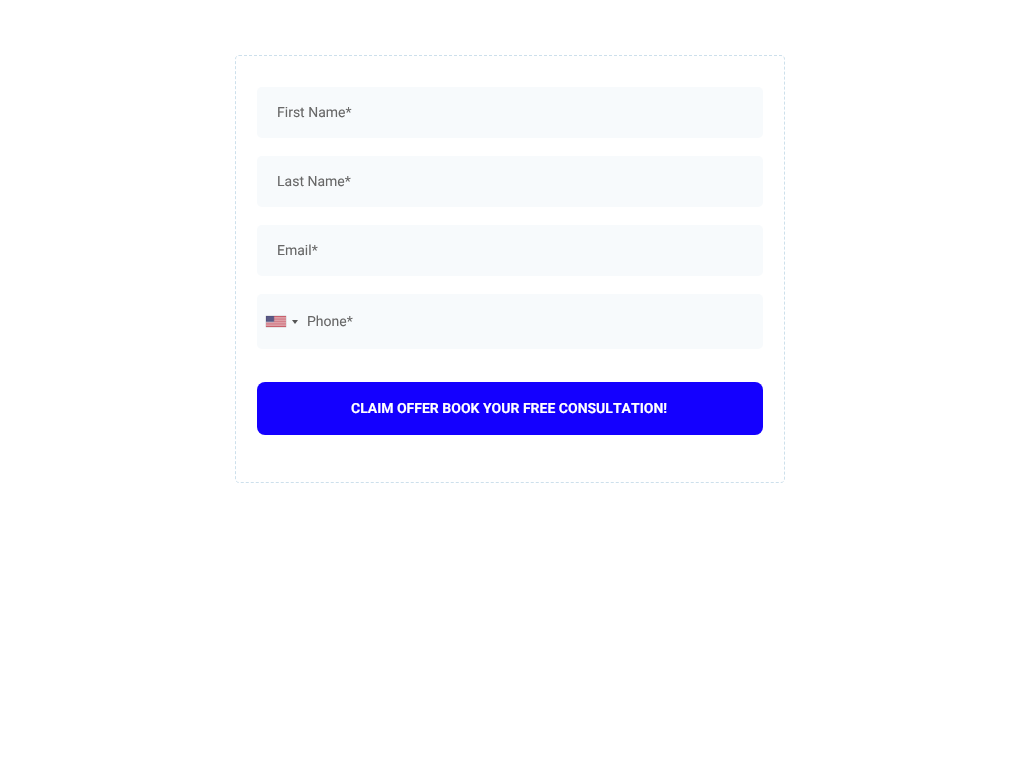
#include "include/core/SkBlurTypes.h"
#include "include/core/SkCanvas.h"
#include "include/core/SkData.h"
#include "include/core/SkFont.h"
#include "include/core/SkFontMgr.h"
#include "include/core/SkImage.h"
#include "include/core/SkMaskFilter.h"
#include "include/core/SkPaint.h"
#include "include/core/SkPathBuilder.h"
#include "include/core/SkTextBlob.h"
#include "include/effects/SkDashPathEffect.h"
#include "include/effects/SkGradientShader.h"
#include "include/utils/SkParsePath.h"

extern sk_sp<SkFontMgr> fontMgr;

void draw(SkCanvas* canvas) {
  SkPaint p;
  p.setAntiAlias(true);
  canvas->clear(SK_ColorWHITE);
  p.setStyle(SkPaint::kStroke_Style);
  p.setStrokeWidth(1);
  p.setColor(SkColorSetRGB(205, 224, 236));
  p.setPathEffect(SkDashPathEffect::Make({{3, 2}}, 0));
  canvas->drawPath(SkPathBuilder().moveTo(239, 55.5f).lineTo(781, 55.5f).cubicTo(783, 55.5f, 784.5f, 57, 784.5f, 59).lineTo(784.5f, 479).cubicTo(784.5f, 481, 783, 482.5f, 781, 482.5f).lineTo(239, 482.5f).cubicTo(237, 482.5f, 235.5f, 481, 235.5f, 479).lineTo(235.5f, 59).cubicTo(235.5f, 57, 237, 55.5f, 239, 55.5f).close().detach(), p);
  p.setPathEffect(nullptr);
  p.setStyle(SkPaint::kFill_Style);
  p.setColor(SkColorSetRGB(247, 250, 252));
  canvas->drawRoundRect(SkRect::MakeLTRB(257, 87, 763, 138), 5, 5, p);
  canvas->drawRoundRect(SkRect::MakeLTRB(257, 156, 763, 207), 5, 5, p);
  canvas->drawRoundRect(SkRect::MakeLTRB(257, 225, 763, 276), 5, 5, p);
  canvas->drawRoundRect(SkRect::MakeLTRB(257, 294, 763, 349), 5, 5, p);
  p.setColor(SkColorSetRGB(136, 136, 136));
  p.setMaskFilter(SkMaskFilter::MakeBlur(kNormal_SkBlurStyle, 0.5f));
  canvas->drawRect(SkRect::MakeLTRB(266, 316, 286, 327), p);
  p.setMaskFilter(nullptr);
  canvas->drawImageRect(SkImages::DeferredFromEncodedData(SkData::MakeFromFileName("images/1.png")), SkRect::MakeLTRB(266, 316, 286, 327), SkSamplingOptions());
  p.setColor(SkColorSetRGB(85, 85, 85));
  canvas->drawPath(SkPathBuilder().moveTo(292, 320).lineTo(298, 320).lineTo(295, 324).close().detach(), p);
  p.setColor(SkColorSetRGB(20, 0, 255));
  canvas->drawRoundRect(SkRect::MakeLTRB(257, 382, 763, 435), 8, 8, p);
  SkFont font1(fontMgr->matchFamilyStyle("Roboto", SkFontStyle::Normal()), 14);
  font1.setSubpixel(true);
  p.setColor(SkColorSetRGB(104, 104, 104));
  canvas->drawString("First Name*", 277, 117, font1, p);
  canvas->drawString("Last Name*", 277, 186, font1, p);
  canvas->drawString("Email*", 277, 255, font1, p);
  canvas->drawString("Phone*", 307, 326, font1, p);
  SkFont font2(fontMgr->matchFamilyStyle("Roboto", SkFontStyle::Bold()), 14);
  font2.setSubpixel(true);
  p.setColor(SK_ColorWHITE);
  canvas->drawString("CLAIM OFFER BOOK YOUR FREE CONSULTATION!", 351, 413, font2, p);
}
